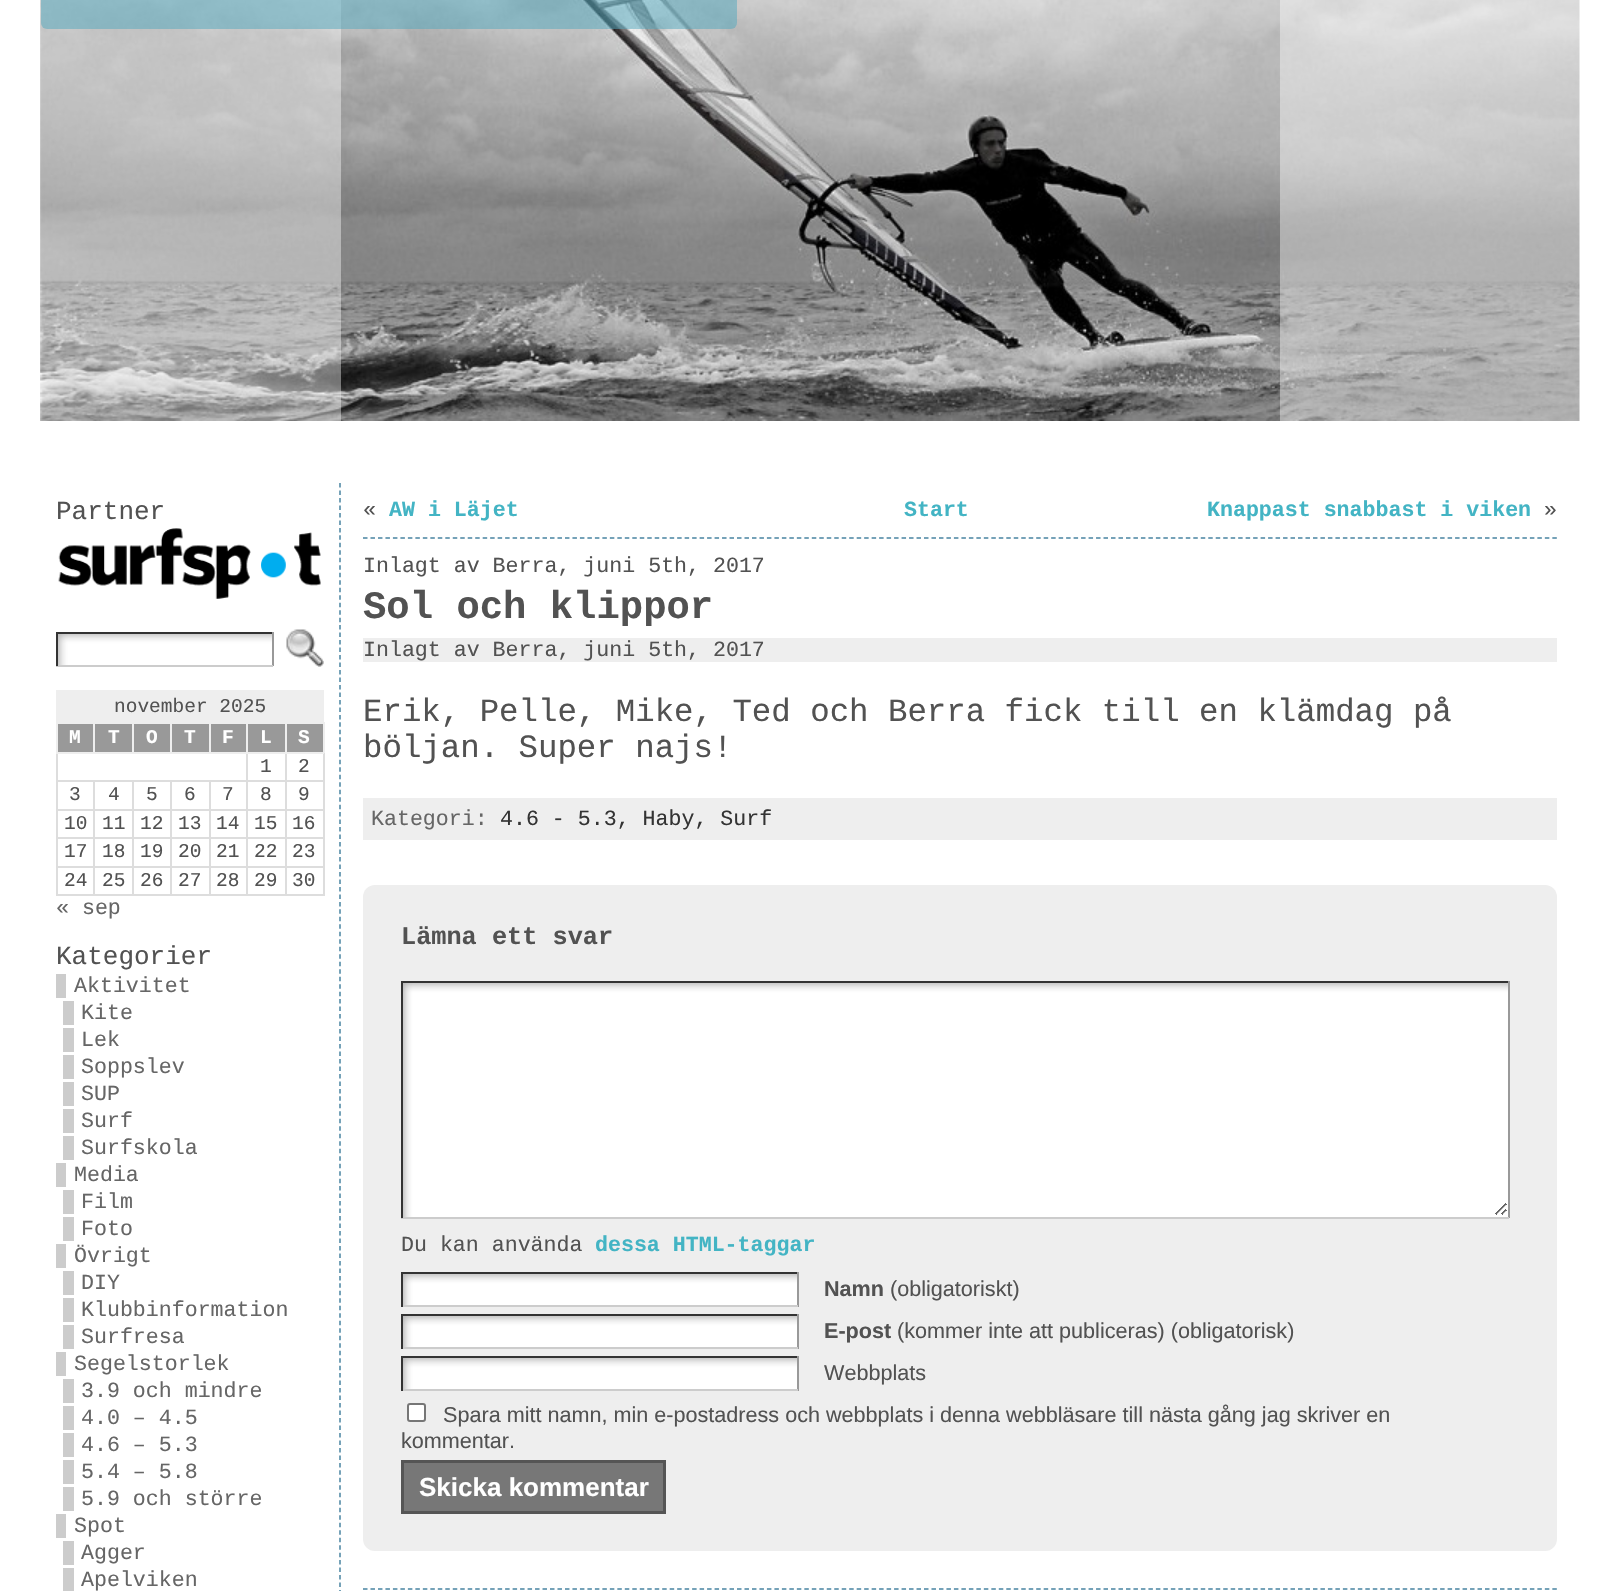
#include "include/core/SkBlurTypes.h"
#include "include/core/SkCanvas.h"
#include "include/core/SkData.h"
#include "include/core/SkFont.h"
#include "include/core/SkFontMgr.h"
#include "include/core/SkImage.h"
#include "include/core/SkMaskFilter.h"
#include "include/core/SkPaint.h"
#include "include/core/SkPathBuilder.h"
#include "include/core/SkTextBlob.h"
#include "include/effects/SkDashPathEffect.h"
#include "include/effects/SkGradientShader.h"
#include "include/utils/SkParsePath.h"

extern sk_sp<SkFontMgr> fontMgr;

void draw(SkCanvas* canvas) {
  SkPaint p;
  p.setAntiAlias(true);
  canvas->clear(SK_ColorWHITE);
  canvas->drawImageRect(SkImages::DeferredFromEncodedData(SkData::MakeFromFileName("images/1.png")), SkRect::MakeLTRB(40, 0, 1580, 421), SkSamplingOptions());
  p.setColor(SkColorSetARGB(102, 255, 255, 255));
  canvas->drawRect(SkRect::MakeLTRB(41, 0, 341, 421), p);
  p.setColor(SkColorSetARGB(128, 80, 168, 189));
  canvas->drawRoundRect(SkRect::MakeLTRB(41, -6, 737, 29), 6, 6, p);
  p.setColor(SkColorSetARGB(102, 255, 255, 255));
  canvas->drawRect(SkRect::MakeLTRB(1280, 0, 1580, 421), p);
  p.setStyle(SkPaint::kStroke_Style);
  p.setStrokeWidth(1.5f);
  p.setColor(SkColorSetRGB(72, 131, 161));
  p.setPathEffect(SkDashPathEffect::Make({{4.5f, 2.98f}}, 0));
  canvas->drawPath(SkPathBuilder().moveTo(340, 483).lineTo(340, 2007).detach(), p);
  p.setPathEffect(nullptr);
  canvas->drawImageRect(SkImages::DeferredFromEncodedData(SkData::MakeFromFileName("images/2.png")), SkRect::MakeLTRB(58, 528, 321, 599), SkSamplingOptions());
  canvas->drawImageRect(SkImages::DeferredFromEncodedData(SkData::MakeFromFileName("images/3.png")), SkRect::MakeLTRB(58, 634, 272, 665), SkSamplingOptions());
  p.setStyle(SkPaint::kFill_Style);
  p.setColor(SkColorSetRGB(51, 51, 51));
  canvas->drawRect(SkRect::MakeLTRB(56, 632, 273, 634), p);
  p.setColor(SkColorSetRGB(153, 153, 153));
  canvas->drawRect(SkRect::MakeLTRB(272, 632, 274, 666), p);
  p.setColor(SkColorSetRGB(204, 204, 204));
  canvas->drawRect(SkRect::MakeLTRB(56, 665, 273, 667), p);
  p.setColor(SkColorSetRGB(51, 51, 51));
  canvas->drawRect(SkRect::MakeLTRB(56, 632, 58, 666), p);
  canvas->drawImageRect(SkImages::DeferredFromEncodedData(SkData::MakeFromFileName("images/4.png")), SkRect::MakeLTRB(286, 629, 324, 667), SkSamplingOptions());
  p.setColor(SkColorSetRGB(238, 238, 238));
  canvas->drawRect(SkRect::MakeLTRB(56, 690, 324, 722), p);
  p.setColor(SkColorSetRGB(153, 153, 153));
  canvas->drawRect(SkRect::MakeLTRB(58, 724, 93, 752), p);
  p.setColor(SkColorSetRGB(238, 238, 238));
  canvas->drawRect(SkRect::MakeLTRB(285, 722, 324, 724), p);
  p.setColor(SkColorSetRGB(221, 221, 221));
  canvas->drawRect(SkRect::MakeLTRB(285, 780, 324, 782), p);
  canvas->drawRect(SkRect::MakeLTRB(285, 809, 324, 811), p);
  canvas->drawRect(SkRect::MakeLTRB(285, 837, 324, 839), p);
  canvas->drawRect(SkRect::MakeLTRB(285, 866, 324, 868), p);
  canvas->drawRect(SkRect::MakeLTRB(323, 866, 325, 896), p);
  canvas->drawRect(SkRect::MakeLTRB(323, 837, 325, 867), p);
  canvas->drawRect(SkRect::MakeLTRB(323, 809, 325, 839), p);
  canvas->drawRect(SkRect::MakeLTRB(323, 752, 325, 810), p);
  p.setColor(SkColorSetRGB(238, 238, 238));
  canvas->drawRect(SkRect::MakeLTRB(323, 722, 325, 753), p);
  p.setColor(SkColorSetRGB(221, 221, 221));
  canvas->drawRect(SkRect::MakeLTRB(285, 894, 324, 896), p);
  canvas->drawRect(SkRect::MakeLTRB(285, 866, 287, 896), p);
  canvas->drawRect(SkRect::MakeLTRB(246, 866, 287, 868), p);
  canvas->drawRect(SkRect::MakeLTRB(285, 837, 287, 867), p);
  canvas->drawRect(SkRect::MakeLTRB(246, 837, 287, 839), p);
  canvas->drawRect(SkRect::MakeLTRB(285, 809, 287, 839), p);
  canvas->drawRect(SkRect::MakeLTRB(246, 809, 287, 811), p);
  canvas->drawRect(SkRect::MakeLTRB(285, 780, 287, 810), p);
  canvas->drawRect(SkRect::MakeLTRB(246, 780, 287, 782), p);
  canvas->drawRect(SkRect::MakeLTRB(285, 752, 287, 782), p);
  p.setColor(SkColorSetRGB(238, 238, 238));
  canvas->drawRect(SkRect::MakeLTRB(285, 752, 324, 754), p);
  canvas->drawRect(SkRect::MakeLTRB(285, 722, 287, 753), p);
  canvas->drawRect(SkRect::MakeLTRB(246, 722, 287, 724), p);
  p.setColor(SkColorSetRGB(221, 221, 221));
  canvas->drawRect(SkRect::MakeLTRB(246, 894, 287, 896), p);
  canvas->drawRect(SkRect::MakeLTRB(246, 866, 248, 896), p);
  canvas->drawRect(SkRect::MakeLTRB(209, 866, 248, 868), p);
  canvas->drawRect(SkRect::MakeLTRB(246, 837, 248, 867), p);
  canvas->drawRect(SkRect::MakeLTRB(209, 837, 248, 839), p);
  canvas->drawRect(SkRect::MakeLTRB(246, 809, 248, 839), p);
  canvas->drawRect(SkRect::MakeLTRB(209, 809, 248, 811), p);
  canvas->drawRect(SkRect::MakeLTRB(246, 780, 248, 810), p);
  canvas->drawRect(SkRect::MakeLTRB(209, 780, 248, 782), p);
  canvas->drawRect(SkRect::MakeLTRB(246, 752, 248, 782), p);
  p.setColor(SkColorSetRGB(238, 238, 238));
  canvas->drawRect(SkRect::MakeLTRB(246, 752, 287, 754), p);
  canvas->drawRect(SkRect::MakeLTRB(246, 722, 248, 753), p);
  canvas->drawRect(SkRect::MakeLTRB(209, 722, 248, 724), p);
  canvas->drawRect(SkRect::MakeLTRB(209, 752, 248, 754), p);
  canvas->drawRect(SkRect::MakeLTRB(209, 722, 211, 753), p);
  canvas->drawRect(SkRect::MakeLTRB(170, 722, 210, 724), p);
  canvas->drawRect(SkRect::MakeLTRB(170, 752, 210, 754), p);
  canvas->drawRect(SkRect::MakeLTRB(170, 722, 172, 753), p);
  canvas->drawRect(SkRect::MakeLTRB(132, 722, 171, 724), p);
  canvas->drawRect(SkRect::MakeLTRB(132, 752, 171, 754), p);
  canvas->drawRect(SkRect::MakeLTRB(132, 722, 134, 753), p);
  canvas->drawRect(SkRect::MakeLTRB(93, 722, 134, 724), p);
  canvas->drawRect(SkRect::MakeLTRB(93, 752, 134, 754), p);
  canvas->drawRect(SkRect::MakeLTRB(93, 722, 95, 753), p);
  canvas->drawRect(SkRect::MakeLTRB(56, 722, 95, 724), p);
  p.setColor(SkColorSetRGB(221, 221, 221));
  canvas->drawRect(SkRect::MakeLTRB(209, 894, 248, 896), p);
  canvas->drawRect(SkRect::MakeLTRB(209, 866, 211, 896), p);
  canvas->drawRect(SkRect::MakeLTRB(170, 866, 210, 868), p);
  canvas->drawRect(SkRect::MakeLTRB(209, 837, 211, 867), p);
  canvas->drawRect(SkRect::MakeLTRB(170, 837, 210, 839), p);
  canvas->drawRect(SkRect::MakeLTRB(209, 809, 211, 839), p);
  canvas->drawRect(SkRect::MakeLTRB(170, 809, 210, 811), p);
  canvas->drawRect(SkRect::MakeLTRB(209, 780, 211, 810), p);
  canvas->drawRect(SkRect::MakeLTRB(170, 780, 210, 782), p);
  canvas->drawRect(SkRect::MakeLTRB(170, 894, 210, 896), p);
  canvas->drawRect(SkRect::MakeLTRB(170, 866, 172, 896), p);
  canvas->drawRect(SkRect::MakeLTRB(132, 866, 171, 868), p);
  canvas->drawRect(SkRect::MakeLTRB(170, 837, 172, 867), p);
  canvas->drawRect(SkRect::MakeLTRB(132, 837, 171, 839), p);
  canvas->drawRect(SkRect::MakeLTRB(170, 809, 172, 839), p);
  canvas->drawRect(SkRect::MakeLTRB(132, 809, 171, 811), p);
  canvas->drawRect(SkRect::MakeLTRB(170, 780, 172, 810), p);
  canvas->drawRect(SkRect::MakeLTRB(132, 780, 171, 782), p);
  canvas->drawRect(SkRect::MakeLTRB(132, 894, 171, 896), p);
  canvas->drawRect(SkRect::MakeLTRB(132, 866, 134, 896), p);
  canvas->drawRect(SkRect::MakeLTRB(93, 866, 134, 868), p);
  canvas->drawRect(SkRect::MakeLTRB(132, 837, 134, 867), p);
  canvas->drawRect(SkRect::MakeLTRB(93, 837, 134, 839), p);
  canvas->drawRect(SkRect::MakeLTRB(132, 809, 134, 839), p);
  canvas->drawRect(SkRect::MakeLTRB(93, 809, 134, 811), p);
  canvas->drawRect(SkRect::MakeLTRB(132, 780, 134, 810), p);
  canvas->drawRect(SkRect::MakeLTRB(93, 780, 134, 782), p);
  canvas->drawRect(SkRect::MakeLTRB(93, 894, 134, 896), p);
  canvas->drawRect(SkRect::MakeLTRB(93, 866, 95, 896), p);
  canvas->drawRect(SkRect::MakeLTRB(56, 866, 95, 868), p);
  canvas->drawRect(SkRect::MakeLTRB(93, 837, 95, 867), p);
  canvas->drawRect(SkRect::MakeLTRB(56, 837, 95, 839), p);
  canvas->drawRect(SkRect::MakeLTRB(93, 809, 95, 839), p);
  canvas->drawRect(SkRect::MakeLTRB(56, 809, 95, 811), p);
  canvas->drawRect(SkRect::MakeLTRB(93, 780, 95, 810), p);
  canvas->drawRect(SkRect::MakeLTRB(56, 780, 95, 782), p);
  canvas->drawRect(SkRect::MakeLTRB(56, 894, 95, 896), p);
  canvas->drawRect(SkRect::MakeLTRB(56, 866, 58, 896), p);
  canvas->drawRect(SkRect::MakeLTRB(56, 837, 58, 867), p);
  canvas->drawRect(SkRect::MakeLTRB(56, 809, 58, 839), p);
  canvas->drawRect(SkRect::MakeLTRB(56, 752, 58, 810), p);
  p.setColor(SkColorSetRGB(238, 238, 238));
  canvas->drawRect(SkRect::MakeLTRB(56, 752, 95, 754), p);
  canvas->drawRect(SkRect::MakeLTRB(56, 722, 58, 753), p);
  p.setColor(SkColorSetRGB(153, 153, 153));
  canvas->drawRect(SkRect::MakeLTRB(95, 724, 132, 752), p);
  canvas->drawRect(SkRect::MakeLTRB(134, 724, 170, 752), p);
  canvas->drawRect(SkRect::MakeLTRB(172, 724, 209, 752), p);
  canvas->drawRect(SkRect::MakeLTRB(211, 724, 246, 752), p);
  canvas->drawRect(SkRect::MakeLTRB(248, 724, 285, 752), p);
  canvas->drawRect(SkRect::MakeLTRB(287, 724, 323, 752), p);
  p.setColor(SkColorSetRGB(204, 204, 204));
  canvas->drawRect(SkRect::MakeLTRB(56, 974, 66, 998), p);
  canvas->drawRect(SkRect::MakeLTRB(63, 1001, 74, 1025), p);
  canvas->drawRect(SkRect::MakeLTRB(63, 1028, 74, 1052), p);
  canvas->drawRect(SkRect::MakeLTRB(63, 1055, 74, 1079), p);
  canvas->drawRect(SkRect::MakeLTRB(63, 1082, 74, 1106), p);
  canvas->drawRect(SkRect::MakeLTRB(63, 1109, 74, 1133), p);
  canvas->drawRect(SkRect::MakeLTRB(63, 1136, 74, 1160), p);
  canvas->drawRect(SkRect::MakeLTRB(56, 1163, 66, 1187), p);
  canvas->drawRect(SkRect::MakeLTRB(63, 1190, 74, 1214), p);
  canvas->drawRect(SkRect::MakeLTRB(63, 1217, 74, 1241), p);
  canvas->drawRect(SkRect::MakeLTRB(56, 1244, 66, 1268), p);
  canvas->drawRect(SkRect::MakeLTRB(63, 1271, 74, 1295), p);
  canvas->drawRect(SkRect::MakeLTRB(63, 1298, 74, 1322), p);
  canvas->drawRect(SkRect::MakeLTRB(63, 1325, 74, 1349), p);
  canvas->drawRect(SkRect::MakeLTRB(56, 1352, 66, 1376), p);
  canvas->drawRect(SkRect::MakeLTRB(63, 1379, 74, 1403), p);
  canvas->drawRect(SkRect::MakeLTRB(63, 1406, 74, 1430), p);
  canvas->drawRect(SkRect::MakeLTRB(63, 1433, 74, 1457), p);
  canvas->drawRect(SkRect::MakeLTRB(63, 1460, 74, 1484), p);
  canvas->drawRect(SkRect::MakeLTRB(63, 1487, 74, 1511), p);
  canvas->drawRect(SkRect::MakeLTRB(56, 1514, 66, 1538), p);
  canvas->drawRect(SkRect::MakeLTRB(63, 1541, 74, 1565), p);
  canvas->drawRect(SkRect::MakeLTRB(63, 1568, 74, 1591), p);
  p.setStyle(SkPaint::kStroke_Style);
  p.setColor(SkColorSetRGB(72, 131, 161));
  p.setPathEffect(SkDashPathEffect::Make({{4.5f, 2.98f}}, 0));
  canvas->drawPath(SkPathBuilder().moveTo(363, 538).lineTo(1557, 538).detach(), p);
  p.setPathEffect(nullptr);
  p.setStyle(SkPaint::kFill_Style);
  p.setColor(SkColorSetRGB(238, 238, 238));
  canvas->drawRect(SkRect::MakeLTRB(363, 638, 1557, 662), p);
  canvas->drawRect(SkRect::MakeLTRB(363, 798, 1557, 840), p);
  canvas->drawRoundRect(SkRect::MakeLTRB(363, 885, 1557, 1551), 12, 12, p);
  canvas->drawImageRect(SkImages::DeferredFromEncodedData(SkData::MakeFromFileName("images/5.png")), SkRect::MakeLTRB(403, 983, 1508, 1217), SkSamplingOptions());
  p.setColor(SkColorSetRGB(51, 51, 51));
  canvas->drawRect(SkRect::MakeLTRB(401, 981, 1509, 983), p);
  p.setColor(SkColorSetRGB(153, 153, 153));
  canvas->drawRect(SkRect::MakeLTRB(1508, 981, 1510, 1218), p);
  p.setColor(SkColorSetRGB(204, 204, 204));
  canvas->drawRect(SkRect::MakeLTRB(401, 1217, 1509, 1219), p);
  p.setColor(SkColorSetRGB(51, 51, 51));
  canvas->drawRect(SkRect::MakeLTRB(401, 981, 403, 1218), p);
  canvas->drawImageRect(SkImages::DeferredFromEncodedData(SkData::MakeFromFileName("images/6.png")), SkRect::MakeLTRB(403, 1274, 797, 1305), SkSamplingOptions());
  canvas->drawRect(SkRect::MakeLTRB(401, 1272, 798, 1274), p);
  p.setColor(SkColorSetRGB(153, 153, 153));
  canvas->drawRect(SkRect::MakeLTRB(797, 1272, 799, 1307), p);
  p.setColor(SkColorSetRGB(204, 204, 204));
  canvas->drawRect(SkRect::MakeLTRB(401, 1305, 798, 1307), p);
  p.setColor(SkColorSetRGB(51, 51, 51));
  canvas->drawRect(SkRect::MakeLTRB(401, 1272, 403, 1307), p);
  canvas->drawImageRect(SkImages::DeferredFromEncodedData(SkData::MakeFromFileName("images/6.png")), SkRect::MakeLTRB(403, 1316, 797, 1347), SkSamplingOptions());
  canvas->drawRect(SkRect::MakeLTRB(401, 1314, 798, 1316), p);
  p.setColor(SkColorSetRGB(153, 153, 153));
  canvas->drawRect(SkRect::MakeLTRB(797, 1314, 799, 1349), p);
  p.setColor(SkColorSetRGB(204, 204, 204));
  canvas->drawRect(SkRect::MakeLTRB(401, 1347, 798, 1349), p);
  p.setColor(SkColorSetRGB(51, 51, 51));
  canvas->drawRect(SkRect::MakeLTRB(401, 1314, 403, 1349), p);
  canvas->drawImageRect(SkImages::DeferredFromEncodedData(SkData::MakeFromFileName("images/6.png")), SkRect::MakeLTRB(403, 1358, 797, 1389), SkSamplingOptions());
  canvas->drawRect(SkRect::MakeLTRB(401, 1356, 798, 1358), p);
  p.setColor(SkColorSetRGB(153, 153, 153));
  canvas->drawRect(SkRect::MakeLTRB(797, 1356, 799, 1391), p);
  p.setColor(SkColorSetRGB(204, 204, 204));
  canvas->drawRect(SkRect::MakeLTRB(401, 1389, 798, 1391), p);
  p.setColor(SkColorSetRGB(51, 51, 51));
  canvas->drawRect(SkRect::MakeLTRB(401, 1356, 403, 1391), p);
  p.setColor(SK_ColorWHITE);
  canvas->drawRoundRect(SkRect::MakeLTRB(408, 1404, 425, 1421), 2, 2, p);
  p.setStyle(SkPaint::kStroke_Style);
  p.setStrokeWidth(2);
  p.setColor(SkColorSetRGB(118, 118, 118));
  canvas->drawRoundRect(SkRect::MakeLTRB(408, 1404, 425, 1421), 2, 2, p);
  p.setStyle(SkPaint::kFill_Style);
  p.setColor(SkColorSetRGB(119, 119, 119));
  canvas->drawRect(SkRect::MakeLTRB(402.5f, 1461.5f, 664.5f, 1512.5f), p);
  p.setStyle(SkPaint::kStroke_Style);
  p.setStrokeWidth(3);
  p.setColor(SkColorSetRGB(85, 85, 85));
  canvas->drawRect(SkRect::MakeLTRB(402.5f, 1461.5f, 664.5f, 1512.5f), p);
  p.setStrokeWidth(1.5f);
  p.setColor(SkColorSetRGB(72, 131, 161));
  p.setPathEffect(SkDashPathEffect::Make({{4.5f, 2.98f}}, 0));
  canvas->drawPath(SkPathBuilder().moveTo(363, 1589).lineTo(1557, 1589).detach(), p);
  p.setPathEffect(nullptr);
  SkFont font1(fontMgr->matchFamilyStyle("Liberation Mono", SkFontStyle::Normal()), 26);
  font1.setSubpixel(true);
  p.setStyle(SkPaint::kFill_Style);
  p.setColor(SkColorSetRGB(82, 82, 82));
  canvas->drawString("Partner", 56, 519, font1, p);
  SkFont font2(fontMgr->matchFamilyStyle("Liberation Mono", SkFontStyle::Normal()), 19.5f);
  font2.setSubpixel(true);
  canvas->drawString("november 2025", 114, 712, font2, p);
  SkFont font3(fontMgr->matchFamilyStyle("Liberation Mono", SkFontStyle::Bold()), 19.5f);
  font3.setSubpixel(true);
  p.setColor(SK_ColorWHITE);
  canvas->drawString("M", 69, 743, font3, p);
  canvas->drawString("T", 108, 743, font3, p);
  canvas->drawString("O", 146, 743, font3, p);
  canvas->drawString("T", 184, 743, font3, p);
  canvas->drawString("F", 222, 743, font3, p);
  canvas->drawString("L", 260, 743, font3, p);
  canvas->drawString("S", 298, 743, font3, p);
  p.setColor(SkColorSetRGB(82, 82, 82));
  canvas->drawString("1", 260, 772, font2, p);
  canvas->drawString("2", 298, 772, font2, p);
  canvas->drawString("3", 69, 800, font2, p);
  canvas->drawString("4", 108, 800, font2, p);
  canvas->drawString("5", 146, 800, font2, p);
  canvas->drawString("6", 184, 800, font2, p);
  canvas->drawString("7", 222, 800, font2, p);
  canvas->drawString("8", 260, 800, font2, p);
  canvas->drawString("9", 298, 800, font2, p);
  canvas->drawString("10", 64, 829, font2, p);
  canvas->drawString("11", 102, 829, font2, p);
  canvas->drawString("12", 140, 829, font2, p);
  canvas->drawString("13", 178, 829, font2, p);
  canvas->drawString("14", 216, 829, font2, p);
  canvas->drawString("15", 254, 829, font2, p);
  canvas->drawString("16", 292, 829, font2, p);
  canvas->drawString("17", 64, 857, font2, p);
  canvas->drawString("18", 102, 857, font2, p);
  canvas->drawString("19", 140, 857, font2, p);
  canvas->drawString("20", 178, 857, font2, p);
  canvas->drawString("21", 216, 857, font2, p);
  canvas->drawString("22", 254, 857, font2, p);
  canvas->drawString("23", 292, 857, font2, p);
  canvas->drawString("24", 64, 886, font2, p);
  canvas->drawString("25", 102, 886, font2, p);
  canvas->drawString("26", 140, 886, font2, p);
  canvas->drawString("27", 178, 886, font2, p);
  canvas->drawString("28", 216, 886, font2, p);
  canvas->drawString("29", 254, 886, font2, p);
  canvas->drawString("30", 292, 886, font2, p);
  SkFont font4(fontMgr->matchFamilyStyle("Liberation Mono", SkFontStyle::Normal()), 21.6f);
  font4.setSubpixel(true);
  p.setColor(SkColorSetRGB(102, 102, 102));
  canvas->drawString("« sep", 56, 914, font4, p);
  p.setColor(SkColorSetRGB(82, 82, 82));
  canvas->drawString("Kategorier", 56, 964, font1, p);
  p.setColor(SkColorSetRGB(102, 102, 102));
  canvas->drawString("Aktivitet", 74, 992, font4, p);
  canvas->drawString("Kite", 81, 1019, font4, p);
  canvas->drawString("Lek", 81, 1046, font4, p);
  canvas->drawString("Soppslev", 81, 1073, font4, p);
  canvas->drawString("SUP", 81, 1100, font4, p);
  canvas->drawString("Surf", 81, 1127, font4, p);
  canvas->drawString("Surfskola", 81, 1154, font4, p);
  canvas->drawString("Media", 74, 1181, font4, p);
  canvas->drawString("Film", 81, 1208, font4, p);
  canvas->drawString("Foto", 81, 1235, font4, p);
  canvas->drawString("Övrigt", 74, 1262, font4, p);
  canvas->drawString("DIY", 81, 1289, font4, p);
  canvas->drawString("Klubbinformation", 81, 1316, font4, p);
  canvas->drawString("Surfresa", 81, 1343, font4, p);
  canvas->drawString("Segelstorlek", 74, 1370, font4, p);
  canvas->drawString("3.9 och mindre", 81, 1397, font4, p);
  canvas->drawString("4.0 – 4.5", 81, 1424, font4, p);
  canvas->drawString("4.6 – 5.3", 81, 1451, font4, p);
  canvas->drawString("5.4 – 5.8", 81, 1478, font4, p);
  canvas->drawString("5.9 och större", 81, 1505, font4, p);
  canvas->drawString("Spot", 74, 1532, font4, p);
  canvas->drawString("Agger", 81, 1559, font4, p);
  canvas->drawString("Apelviken", 81, 1586, font4, p);
  p.setColor(SkColorSetRGB(82, 82, 82));
  canvas->drawString("«", 363, 516, font4, p);
  SkFont font5(fontMgr->matchFamilyStyle("Liberation Mono", SkFontStyle::Bold()), 21.6f);
  font5.setSubpixel(true);
  p.setColor(SkColorSetRGB(67, 180, 196));
  canvas->drawString("AW i Läjet", 389, 516, font5, p);
  canvas->drawString("Start", 904, 516, font5, p);
  canvas->drawString("Knappast snabbast i viken", 1207, 516, font5, p);
  p.setColor(SkColorSetRGB(82, 82, 82));
  canvas->drawString("»", 1544, 516, font4, p);
  canvas->drawString("Inlagt av Berra, juni 5th, 2017", 363, 572, font4, p);
  SkFont font6(fontMgr->matchFamilyStyle("Liberation Mono", SkFontStyle::Bold()), 38.9f);
  font6.setSubpixel(true);
  canvas->drawString("Sol och klippor", 363, 618, font6, p);
  canvas->drawString("Inlagt av Berra, juni 5th, 2017", 363, 656, font4, p);
  SkFont font7(fontMgr->matchFamilyStyle("Liberation Mono", SkFontStyle::Normal()), 32.4f);
  font7.setSubpixel(true);
  canvas->drawString("Erik, Pelle, Mike, Ted och Berra fick till en klämdag på", 363, 721, font7, p);
  canvas->drawString("böljan. Super najs!", 363, 757, font7, p);
  p.setColor(SkColorSetRGB(102, 102, 102));
  canvas->drawString("Kategori:", 371, 825, font4, p);
  p.setColor(SkColorSetRGB(51, 51, 51));
  canvas->drawString("4.6 - 5.3, Haby, Surf", 500, 825, font4, p);
  SkFont font8(fontMgr->matchFamilyStyle("Liberation Mono", SkFontStyle::Bold()), 25.25f);
  font8.setSubpixel(true);
  p.setColor(SkColorSetRGB(82, 82, 82));
  canvas->drawString("Lämna ett svar", 401, 944, font8, p);
  canvas->drawString("Du kan använda", 401, 1251, font4, p);
  p.setColor(SkColorSetRGB(67, 180, 196));
  canvas->drawString("dessa HTML-taggar", 595, 1251, font5, p);
  SkFont font9(fontMgr->matchFamilyStyle("Liberation Sans", SkFontStyle::Bold()), 21.6f);
  font9.setSubpixel(true);
  p.setColor(SkColorSetRGB(82, 82, 82));
  canvas->drawString("Namn", 824, 1296, font9, p);
  SkFont font10(fontMgr->matchFamilyStyle("Liberation Sans", SkFontStyle::Normal()), 21.6f);
  font10.setSubpixel(true);
  canvas->drawString("(obligatoriskt)", 890, 1296, font10, p);
  canvas->drawString("E-post", 824, 1338, font9, p);
  canvas->drawString("(kommer inte att publiceras) (obligatorisk)", 897, 1338, font10, p);
  canvas->drawString("Webbplats", 824, 1380, font10, p);
  canvas->drawString("Spara mitt namn, min e-postadress och webbplats i denna webbläsare till nästa gång jag skriver en", 443, 1422, font10, p);
  canvas->drawString("kommentar.", 401, 1448, font10, p);
  SkFont font11(fontMgr->matchFamilyStyle("Liberation Sans", SkFontStyle::Bold()), 26);
  font11.setSubpixel(true);
  p.setColor(SK_ColorWHITE);
  canvas->drawString("Skicka kommentar", 419, 1496, font11, p);
}
